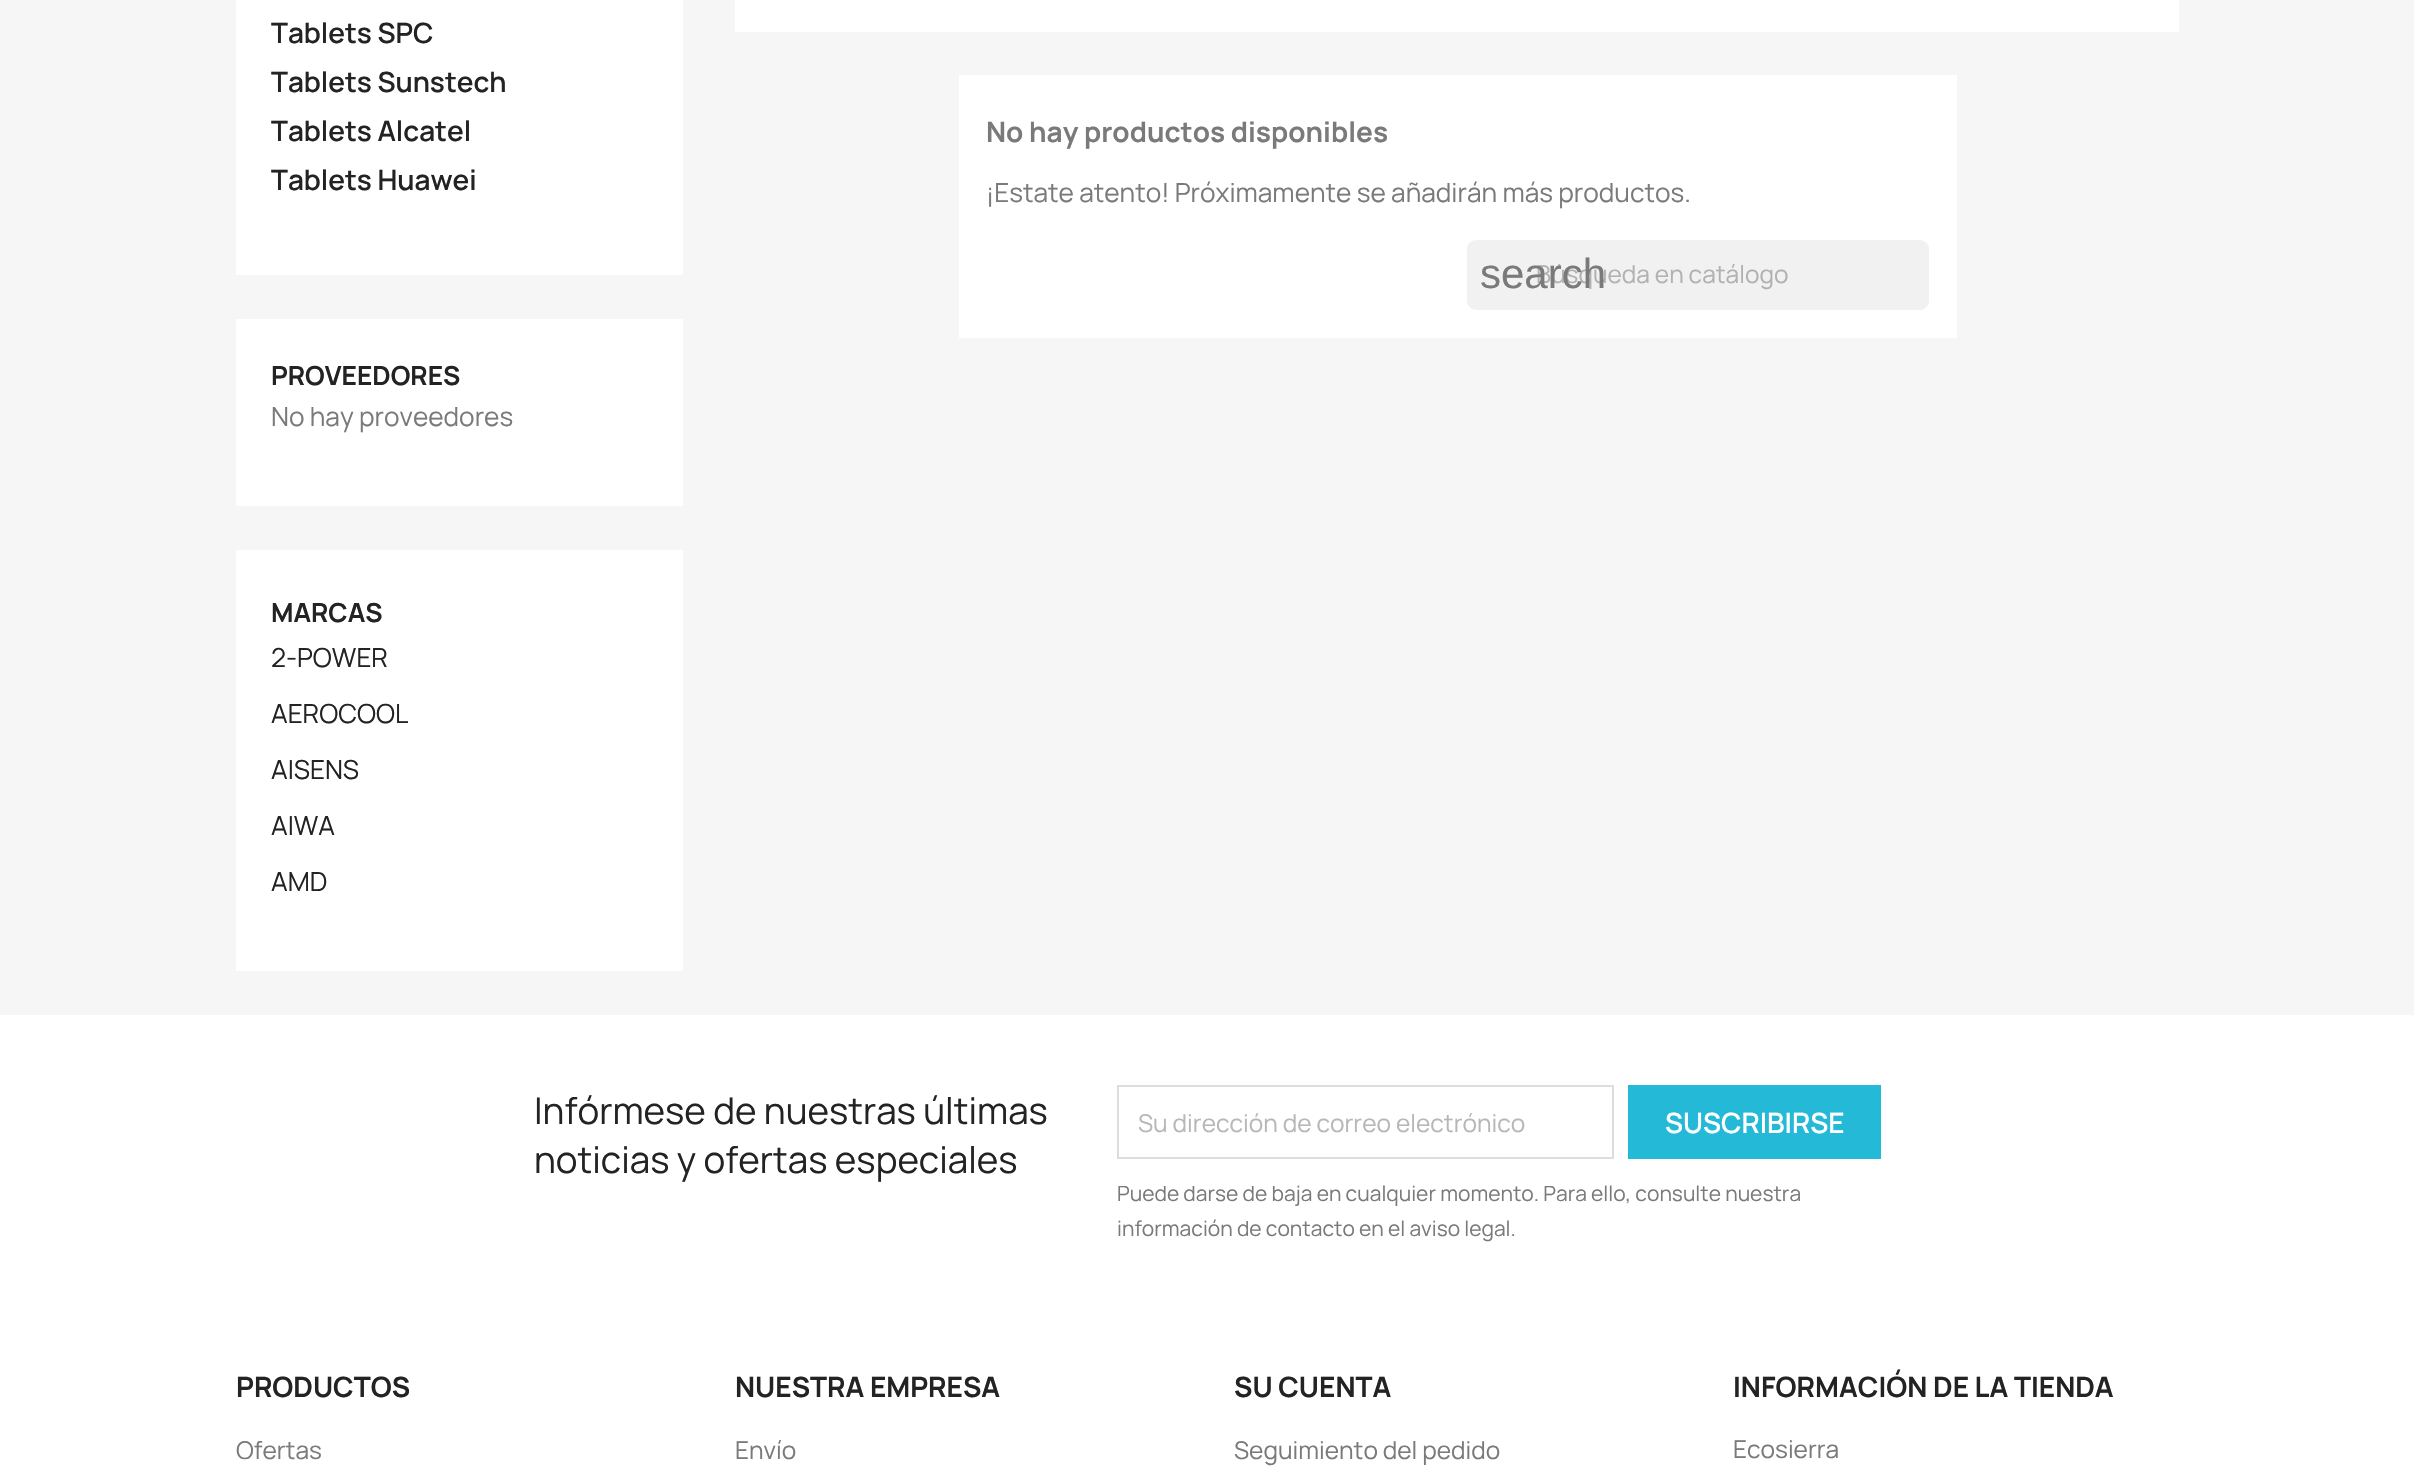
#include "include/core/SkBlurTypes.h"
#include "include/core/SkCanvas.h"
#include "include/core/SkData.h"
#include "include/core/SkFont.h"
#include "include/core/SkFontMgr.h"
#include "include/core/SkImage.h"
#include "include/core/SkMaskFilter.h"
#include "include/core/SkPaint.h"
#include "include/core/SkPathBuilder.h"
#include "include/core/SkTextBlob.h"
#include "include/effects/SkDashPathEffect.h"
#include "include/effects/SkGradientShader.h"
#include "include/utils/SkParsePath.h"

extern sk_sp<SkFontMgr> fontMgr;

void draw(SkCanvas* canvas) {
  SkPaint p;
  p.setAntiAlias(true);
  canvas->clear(SK_ColorWHITE);
  p.setColor(SkColorSetRGB(246, 246, 246));
  canvas->drawRect(SkRect::MakeLTRB(0, 0, 2414, 1015), p);
  p.setColor(SK_ColorWHITE);
  canvas->drawRect(SkRect::MakeLTRB(236, 0, 683, 275), p);
  canvas->drawRect(SkRect::MakeLTRB(236, 319, 683, 506), p);
  canvas->drawRect(SkRect::MakeLTRB(236, 550, 683, 971), p);
  canvas->drawRect(SkRect::MakeLTRB(735, 0, 2179, 32), p);
  canvas->drawRect(SkRect::MakeLTRB(959, 75, 1957, 338), p);
  p.setColor(SkColorSetRGB(241, 241, 241));
  canvas->drawRoundRect(SkRect::MakeLTRB(1467, 240, 1929, 310), 9, 9, p);
  p.setStyle(SkPaint::kStroke_Style);
  p.setStrokeWidth(2);
  p.setColor(SkColorSetRGB(221, 221, 221));
  canvas->drawRect(SkRect::MakeLTRB(1118, 1086, 1613, 1158), p);
  p.setStyle(SkPaint::kFill_Style);
  p.setColor(SkColorSetRGB(36, 185, 215));
  canvas->drawRect(SkRect::MakeLTRB(1628, 1085, 1881, 1159), p);
  SkFont font1(fontMgr->matchFamilyStyle("Manrope", SkFontStyle(600, SkFontStyle::kNormal_Width, SkFontStyle::kUpright_Slant)), 28);
  font1.setSubpixel(true);
  p.setColor(SkColorSetRGB(35, 35, 35));
  canvas->drawString("Tablets SPC", 271, 43, font1, p);
  canvas->drawString("Tablets Sunstech", 271, 92, font1, p);
  canvas->drawString("Tablets Alcatel", 271, 141, font1, p);
  canvas->drawString("Tablets Huawei", 271, 190, font1, p);
  SkFont font2(fontMgr->matchFamilyStyle("Manrope", SkFontStyle::Bold()), 26.25f);
  font2.setSubpixel(true);
  canvas->drawString("PROVEEDORES", 271, 385, font2, p);
  SkFont font3(fontMgr->matchFamilyStyle("Manrope", SkFontStyle::Normal()), 26.25f);
  font3.setSubpixel(true);
  p.setColor(SkColorSetRGB(122, 122, 122));
  canvas->drawString("No hay proveedores", 271, 426, font3, p);
  p.setColor(SkColorSetRGB(35, 35, 35));
  canvas->drawString("MARCAS", 271, 622, font2, p);
  canvas->drawString("2-POWER", 271, 667, font3, p);
  canvas->drawString("AEROCOOL", 271, 723, font3, p);
  canvas->drawString("AISENS", 271, 779, font3, p);
  canvas->drawString("AIWA", 271, 835, font3, p);
  canvas->drawString("AMD", 271, 891, font3, p);
  SkFont font4(fontMgr->matchFamilyStyle("Manrope", SkFontStyle::Bold()), 28);
  font4.setSubpixel(true);
  p.setColor(SkColorSetRGB(122, 122, 122));
  canvas->drawString("No hay productos disponibles", 986, 142, font4, p);
  canvas->drawString("¡Estate atento! Próximamente se añadirán más productos.", 986, 202, font3, p);
  SkFont font5(fontMgr->matchFamilyStyle("Manrope", SkFontStyle::Normal()), 24.5f);
  font5.setSubpixel(true);
  p.setColor(SkColorSetRGB(177, 177, 177));
  canvas->drawString("Búsqueda en catálogo", 1536, 283, font5, p);
  SkFont font6(fontMgr->matchFamilyStyle("Liberation Sans", SkFontStyle::Normal()), 42);
  font6.setSubpixel(true);
  p.setColor(SkColorSetRGB(122, 122, 122));
  canvas->drawString("search", 1480, 288, font6, p);
  SkFont font7(fontMgr->matchFamilyStyle("Manrope", SkFontStyle::Normal()), 36.75f);
  font7.setSubpixel(true);
  p.setColor(SkColorSetRGB(35, 35, 35));
  canvas->drawString("Infórmese de nuestras últimas", 534, 1124, font7, p);
  canvas->drawString("noticias y ofertas especiales", 534, 1173, font7, p);
  p.setColor(SkColorSetRGB(183, 183, 183));
  canvas->drawString("Su dirección de correo electrónico", 1138, 1132, font5, p);
  p.setColor(SK_ColorWHITE);
  canvas->drawString("SUSCRIBIRSE", 1665, 1133, font1, p);
  SkFont font8(fontMgr->matchFamilyStyle("Manrope", SkFontStyle::Normal()), 21);
  font8.setSubpixel(true);
  p.setColor(SkColorSetRGB(122, 122, 122));
  canvas->drawString("Puede darse de baja en cualquier momento. Para ello, consulte nuestra", 1117, 1201, font8, p);
  canvas->drawString("información de contacto en el aviso legal.", 1117, 1236, font8, p);
  p.setColor(SkColorSetRGB(35, 35, 35));
  canvas->drawString("PRODUCTOS", 236, 1397, font4, p);
  p.setColor(SkColorSetRGB(122, 122, 122));
  canvas->drawString("Ofertas", 236, 1459, font5, p);
  p.setColor(SkColorSetRGB(35, 35, 35));
  canvas->drawString("NUESTRA EMPRESA", 735, 1397, font4, p);
  p.setColor(SkColorSetRGB(122, 122, 122));
  canvas->drawString("Envío", 735, 1459, font5, p);
  p.setColor(SkColorSetRGB(35, 35, 35));
  canvas->drawString("SU CUENTA", 1234, 1397, font4, p);
  p.setColor(SkColorSetRGB(122, 122, 122));
  canvas->drawString("Seguimiento del pedido", 1234, 1459, font5, p);
  p.setColor(SkColorSetRGB(35, 35, 35));
  canvas->drawString("INFORMACIÓN DE LA TIENDA", 1733, 1397, font4, p);
  p.setColor(SkColorSetRGB(122, 122, 122));
  canvas->drawString("Ecosierra", 1733, 1458, font5, p);
}
